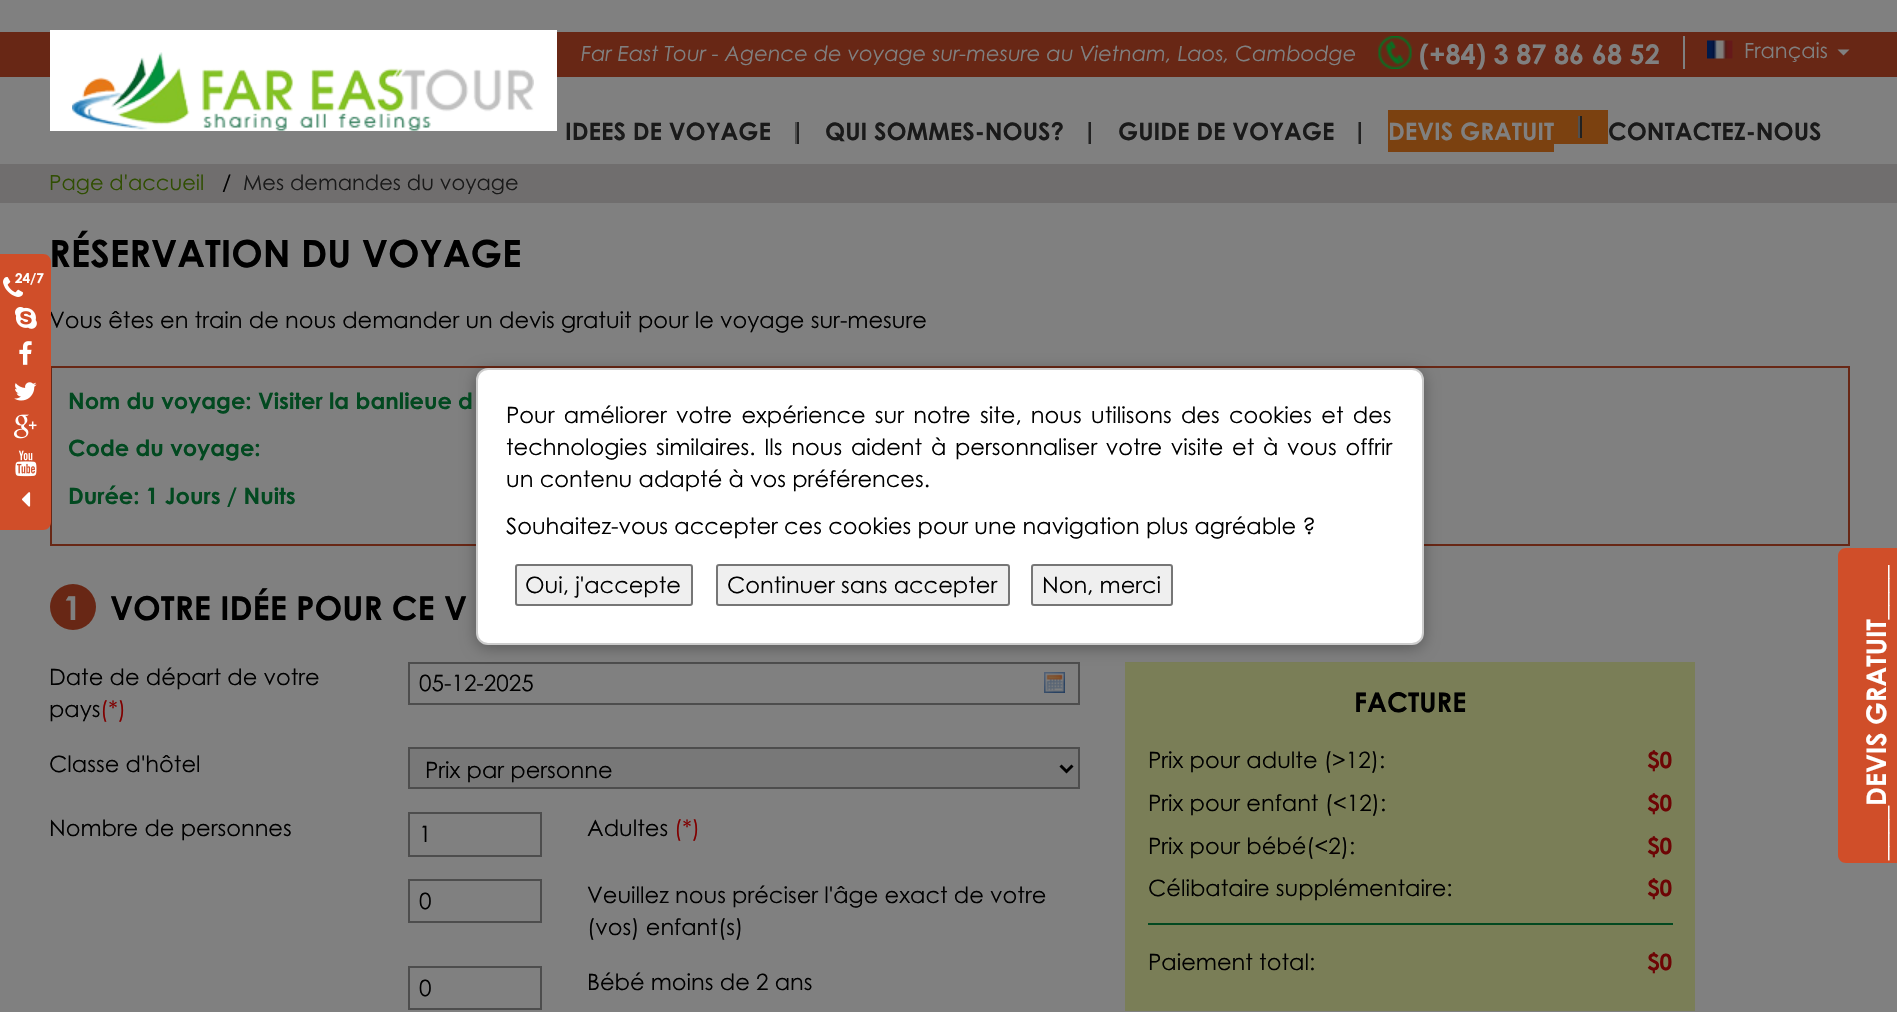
#include "include/core/SkBlurTypes.h"
#include "include/core/SkCanvas.h"
#include "include/core/SkData.h"
#include "include/core/SkFont.h"
#include "include/core/SkFontMgr.h"
#include "include/core/SkImage.h"
#include "include/core/SkMaskFilter.h"
#include "include/core/SkPaint.h"
#include "include/core/SkPathBuilder.h"
#include "include/core/SkTextBlob.h"
#include "include/effects/SkDashPathEffect.h"
#include "include/effects/SkGradientShader.h"
#include "include/utils/SkParsePath.h"

extern sk_sp<SkFontMgr> fontMgr;

void draw(SkCanvas* canvas) {
  SkPaint p;
  p.setAntiAlias(true);
  auto spacedText = [&](const char* s, float x, float y, const SkFont& font, const SkPaint& ink, float letter, float word) {
    std::vector<SkGlyphID> glyphs(font.countText(s, strlen(s), SkTextEncoding::kUTF8));
    std::vector<float> xs(glyphs.size());
    font.textToGlyphs(s, strlen(s), SkTextEncoding::kUTF8, glyphs);
    font.getXPos(glyphs, xs, x);
    float extra = 0;
    for (size_t i = 0; i < glyphs.size(); i++) {
      xs[i] += extra;
      extra += letter + word * (glyphs[i] == font.unicharToGlyph(' '));
    }
    canvas->drawTextBlob(SkTextBlob::MakeFromPosHGlyphs(glyphs, xs, y, font), 0, 0, ink);
  };
  canvas->clear(SkColorSetRGB(128, 128, 128));
  p.setColor(SkColorSetRGB(104, 39, 21));
  canvas->drawRect(SkRect::MakeLTRB(0, 32, 1897, 77), p);
  canvas->drawImageRect(SkImages::DeferredFromEncodedData(SkData::MakeFromFileName("images/1.png")), SkRect::MakeLTRB(1378, 36, 1412, 69), SkSamplingOptions());
  p.setColor(SkColorSetRGB(128, 128, 128));
  canvas->drawRect(SkRect::MakeLTRB(1683, 36, 1685, 69), p);
  canvas->drawImageRect(SkImages::DeferredFromEncodedData(SkData::MakeFromFileName("images/2.png")), SkRect::MakeLTRB(1707, 40, 1733, 59), SkSamplingOptions());
  canvas->drawPath(SkPathBuilder().moveTo(1837.5f, 49.5f).lineTo(1849.5f, 49.5f).lineTo(1843.5f, 55.5f).close().detach(), p);
  p.setColor(SK_ColorWHITE);
  canvas->drawRect(SkRect::MakeLTRB(50, 30, 557, 131), p);
  canvas->drawImageRect(SkImages::DeferredFromEncodedData(SkData::MakeFromFileName("images/3.png")), SkRect::MakeLTRB(72, 52, 534, 131), SkSamplingOptions());
  p.setColor(SkColorSetRGB(80, 80, 80));
  canvas->drawRect(SkRect::MakeLTRB(795, 122, 797, 144), p);
  p.setColor(SkColorSetRGB(33, 33, 33));
  canvas->drawRect(SkRect::MakeLTRB(797, 122, 799, 144), p);
  p.setColor(SkColorSetRGB(80, 80, 80));
  canvas->drawRect(SkRect::MakeLTRB(1088, 122, 1089, 144), p);
  p.setColor(SkColorSetRGB(33, 33, 33));
  canvas->drawRect(SkRect::MakeLTRB(1089, 122, 1091, 144), p);
  p.setColor(SkColorSetRGB(80, 80, 80));
  canvas->drawRect(SkRect::MakeLTRB(1358, 122, 1359, 144), p);
  p.setColor(SkColorSetRGB(33, 33, 33));
  canvas->drawRect(SkRect::MakeLTRB(1359, 122, 1361, 144), p);
  p.setColor(SkColorSetRGB(123, 65, 16));
  canvas->drawRect(SkRect::MakeLTRB(1554, 110, 1608, 144), p);
  canvas->drawRect(SkRect::MakeLTRB(1388, 110, 1554, 152), p);
  p.setColor(SkColorSetRGB(80, 80, 80));
  canvas->drawRect(SkRect::MakeLTRB(1578, 116, 1580, 138), p);
  p.setColor(SkColorSetRGB(33, 33, 33));
  canvas->drawRect(SkRect::MakeLTRB(1580, 116, 1582, 138), p);
  p.setColor(SkColorSetRGB(112, 110, 110));
  canvas->drawRect(SkRect::MakeLTRB(0, 164, 1897, 203), p);
  p.setStyle(SkPaint::kStroke_Style);
  p.setStrokeWidth(2);
  p.setColor(SkColorSetRGB(104, 39, 21));
  canvas->drawRect(SkRect::MakeLTRB(51, 367, 1849, 545), p);
  p.setStyle(SkPaint::kFill_Style);
  canvas->drawCircle(73, 607, 23, p);
  canvas->drawImageRect(SkImages::DeferredFromEncodedData(SkData::MakeFromFileName("images/11.png")), SkRect::MakeLTRB(1044, 672, 1065, 693), SkSamplingOptions());
  p.setStyle(SkPaint::kStroke_Style);
  p.setColor(SkColorSetRGB(77, 77, 77));
  canvas->drawRect(SkRect::MakeLTRB(409, 663, 1079, 704), p);
  p.setStyle(SkPaint::kFill_Style);
  p.setColor(SkColorSetRGB(120, 120, 120));
  canvas->drawRect(SkRect::MakeLTRB(409, 748, 1079, 788), p);
  p.setStyle(SkPaint::kStroke_Style);
  p.setColor(SkColorSetRGB(77, 77, 77));
  canvas->drawRect(SkRect::MakeLTRB(409, 748, 1079, 788), p);
  p.setStrokeWidth(3);
  p.setColor(SK_ColorBLACK);
  canvas->drawPath(SkPathBuilder().moveTo(1060.5f, 765.5f).lineTo(1066.5f, 771.5f).lineTo(1072.5f, 765.5f).detach(), p);
  p.setStrokeWidth(2);
  p.setColor(SkColorSetRGB(77, 77, 77));
  canvas->drawRect(SkRect::MakeLTRB(409, 813, 541, 856), p);
  canvas->drawRect(SkRect::MakeLTRB(409, 880, 541, 922), p);
  canvas->drawRect(SkRect::MakeLTRB(409, 967, 541, 1009), p);
  p.setStyle(SkPaint::kFill_Style);
  p.setColor(SkColorSetRGB(122, 126, 87));
  canvas->drawRect(SkRect::MakeLTRB(1125, 662, 1695, 1011), p);
  p.setColor(SkColorSetRGB(2, 73, 32));
  canvas->drawRect(SkRect::MakeLTRB(1148, 923, 1673, 925), p);
  p.setColor(SkColorSetARGB(77, 0, 0, 0));
  p.setMaskFilter(SkMaskFilter::MakeBlur(kNormal_SkBlurStyle, 7.5f));
  canvas->drawRoundRect(SkRect::MakeLTRB(476, 371, 1424, 648), 12, 12, p);
  p.setMaskFilter(nullptr);
  p.setColor(SK_ColorWHITE);
  canvas->drawRoundRect(SkRect::MakeLTRB(477, 369, 1423, 644), 11, 11, p);
  p.setStyle(SkPaint::kStroke_Style);
  p.setColor(SkColorSetRGB(204, 204, 204));
  canvas->drawRoundRect(SkRect::MakeLTRB(477, 369, 1423, 644), 11, 11, p);
  p.setStyle(SkPaint::kFill_Style);
  p.setColor(SkColorSetRGB(239, 239, 239));
  canvas->drawRoundRect(SkRect::MakeLTRB(516, 565, 692, 605), 2, 2, p);
  p.setStyle(SkPaint::kStroke_Style);
  p.setColor(SkColorSetRGB(118, 118, 118));
  canvas->drawRoundRect(SkRect::MakeLTRB(516, 565, 692, 605), 2, 2, p);
  p.setStyle(SkPaint::kFill_Style);
  p.setColor(SkColorSetRGB(239, 239, 239));
  canvas->drawRoundRect(SkRect::MakeLTRB(717, 565, 1009, 605), 2, 2, p);
  p.setStyle(SkPaint::kStroke_Style);
  p.setColor(SkColorSetRGB(118, 118, 118));
  canvas->drawRoundRect(SkRect::MakeLTRB(717, 565, 1009, 605), 2, 2, p);
  p.setStyle(SkPaint::kFill_Style);
  p.setColor(SkColorSetRGB(239, 239, 239));
  canvas->drawRoundRect(SkRect::MakeLTRB(1032, 565, 1172, 605), 2, 2, p);
  p.setStyle(SkPaint::kStroke_Style);
  p.setColor(SkColorSetRGB(118, 118, 118));
  canvas->drawRoundRect(SkRect::MakeLTRB(1032, 565, 1172, 605), 2, 2, p);
  p.setStyle(SkPaint::kFill_Style);
  p.setColor(SkColorSetRGB(208, 78, 41));
  canvas->drawPath(SkPathBuilder().moveTo(1846, 548).lineTo(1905, 548).lineTo(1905, 863).lineTo(1846, 863).cubicTo(1841.5f, 863, 1838, 859.5f, 1838, 855).lineTo(1838, 556).cubicTo(1838, 551.5f, 1841.5f, 548, 1846, 548).close().detach(), p);
  SkFont font1(fontMgr->matchFamilyStyle("Century Gothic", SkFontStyle::Italic()), 21);
  font1.setSubpixel(true);
  p.setColor(SkColorSetRGB(128, 128, 128));
  canvas->drawString("Far East Tour - Agence de voyage sur-mesure au Vietnam, Laos, Cambodge", 581, 61, font1, p);
  SkFont font2(fontMgr->matchFamilyStyle("Century Gothic", SkFontStyle::Bold()), 27);
  font2.setSubpixel(true);
  canvas->drawString("(+84) 3 87 86 68 52", 1419, 64, font2, p);
  SkFont font3(fontMgr->matchFamilyStyle("Century Gothic", SkFontStyle::Normal()), 21);
  font3.setSubpixel(true);
  canvas->drawString("Français", 1744, 58, font3, p);
  SkFont font4(fontMgr->matchFamilyStyle("Century Gothic", SkFontStyle::Bold()), 24);
  font4.setSubpixel(true);
  p.setColor(SkColorSetRGB(26, 26, 26));
  canvas->drawString("IDEES DE VOYAGE", 565, 140, font4, p);
  canvas->drawString("QUI SOMMES-NOUS?", 825, 140, font4, p);
  canvas->drawString("GUIDE DE VOYAGE", 1118, 140, font4, p);
  p.setColor(SkColorSetRGB(128, 128, 128));
  canvas->drawString("DEVIS GRATUIT", 1388, 140, font4, p);
  p.setColor(SkColorSetRGB(26, 26, 26));
  canvas->drawString("CONTACTEZ-NOUS", 1608, 140, font4, p);
  p.setColor(SkColorSetRGB(48, 78, 2));
  canvas->drawString("Page d'accueil", 49, 190, font3, p);
  p.setColor(SK_ColorBLACK);
  canvas->drawString("/", 222, 190, font3, p);
  p.setColor(SkColorSetRGB(26, 26, 26));
  canvas->drawString("Mes demandes du voyage", 243, 190, font3, p);
  SkFont font5(fontMgr->matchFamilyStyle("Century Gothic", SkFontStyle::Bold()), 37.5f);
  font5.setSubpixel(true);
  p.setColor(SK_ColorBLACK);
  canvas->drawString("RÉSERVATION DU VOYAGE", 49, 267, font5, p);
  SkFont font6(fontMgr->matchFamilyStyle("Century Gothic", SkFontStyle::Normal()), 22.5f);
  font6.setSubpixel(true);
  canvas->drawString("Vous êtes en train de nous demander un devis gratuit pour le voyage sur-mesure", 49, 328, font6, p);
  p.setColor(SkColorSetRGB(208, 78, 41));
  canvas->drawPath(SkPathBuilder().moveTo(0, 254).lineTo(43, 254).cubicTo(47.5f, 254, 51, 257.5f, 51, 262).lineTo(51, 522).cubicTo(51, 526.5f, 47.5f, 530, 43, 530).lineTo(0, 530).close().detach(), p);
  canvas->drawImageRect(SkImages::DeferredFromEncodedData(SkData::MakeFromFileName("images/10.png")), SkRect::MakeLTRB(22, 492, 31, 507), SkSamplingOptions());
  canvas->drawImageRect(SkImages::DeferredFromEncodedData(SkData::MakeFromFileName("images/9.png")), SkRect::MakeLTRB(15, 450, 37, 477), SkSamplingOptions());
  canvas->drawImageRect(SkImages::DeferredFromEncodedData(SkData::MakeFromFileName("images/8.png")), SkRect::MakeLTRB(14, 414, 37, 439), SkSamplingOptions());
  canvas->drawImageRect(SkImages::DeferredFromEncodedData(SkData::MakeFromFileName("images/7.png")), SkRect::MakeLTRB(14, 382, 37, 401), SkSamplingOptions());
  canvas->drawImageRect(SkImages::DeferredFromEncodedData(SkData::MakeFromFileName("images/6.png")), SkRect::MakeLTRB(19, 341, 32, 365), SkSamplingOptions());
  canvas->drawImageRect(SkImages::DeferredFromEncodedData(SkData::MakeFromFileName("images/5.png")), SkRect::MakeLTRB(15, 307, 37, 329), SkSamplingOptions());
  canvas->drawImageRect(SkImages::DeferredFromEncodedData(SkData::MakeFromFileName("images/4.png")), SkRect::MakeLTRB(3, 277, 23, 297), SkSamplingOptions());
  SkFont font7(fontMgr->matchFamilyStyle("Century Gothic", SkFontStyle::Bold()), 13.5f);
  font7.setSubpixel(true);
  p.setColor(SK_ColorWHITE);
  canvas->drawString("24/7", 15, 283, font7, p);
  SkFont font8(fontMgr->matchFamilyStyle("Century Gothic", SkFontStyle::Bold()), 22.5f);
  font8.setSubpixel(true);
  p.setColor(SkColorSetRGB(2, 73, 32));
  canvas->drawString("Nom du voyage: Visiter la banlieue d", 68, 409, font8, p);
  canvas->drawString("Code du voyage:", 68, 456, font8, p);
  canvas->drawString("Durée: 1 Jours / Nuits", 68, 504, font8, p);
  SkFont font9(fontMgr->matchFamilyStyle("Century Gothic", SkFontStyle::Bold()), 33);
  font9.setSubpixel(true);
  p.setColor(SkColorSetRGB(128, 128, 128));
  canvas->drawString("1", 63, 620, font9, p);
  p.setColor(SK_ColorBLACK);
  canvas->drawString("VOTRE IDÉE POUR CE V", 110, 620, font9, p);
  canvas->drawString("Date de départ de votre", 49, 685, font6, p);
  canvas->drawString("pays", 49, 717, font6, p);
  p.setColor(SkColorSetRGB(128, 0, 0));
  canvas->drawString("(*)", 100, 717, font6, p);
  p.setColor(SK_ColorBLACK);
  canvas->drawString("05-12-2025", 419, 691, font6, p);
  canvas->drawString("Classe d'hôtel", 49, 772, font6, p);
  canvas->drawString("Prix par personne", 425, 778, font6, p);
  canvas->drawString("Nombre de personnes", 49, 836, font6, p);
  canvas->drawString("1", 419, 842, font6, p);
  canvas->drawString("Adultes", 587, 836, font6, p);
  p.setColor(SkColorSetRGB(128, 0, 0));
  canvas->drawString("(*)", 674, 836, font6, p);
  p.setColor(SK_ColorBLACK);
  canvas->drawString("0", 419, 909, font6, p);
  canvas->drawString("Veuillez nous préciser l'âge exact de votre", 587, 903, font6, p);
  canvas->drawString("(vos) enfant(s)", 587, 935, font6, p);
  canvas->drawString("0", 419, 996, font6, p);
  canvas->drawString("Bébé moins de 2 ans", 587, 990, font6, p);
  canvas->drawString("FACTURE", 1354, 712, font2, p);
  canvas->drawString("Prix pour adulte (>12):", 1148, 768, font6, p);
  p.setColor(SkColorSetRGB(109, 4, 4));
  canvas->drawString("$0", 1647, 768, font8, p);
  p.setColor(SK_ColorBLACK);
  canvas->drawString("Prix pour enfant (<12):", 1148, 811, font6, p);
  p.setColor(SkColorSetRGB(109, 4, 4));
  canvas->drawString("$0", 1647, 811, font8, p);
  p.setColor(SK_ColorBLACK);
  canvas->drawString("Prix pour bébé(<2):", 1148, 854, font6, p);
  p.setColor(SkColorSetRGB(109, 4, 4));
  canvas->drawString("$0", 1647, 854, font8, p);
  p.setColor(SK_ColorBLACK);
  canvas->drawString("Célibataire supplémentaire:", 1148, 896, font6, p);
  p.setColor(SkColorSetRGB(109, 4, 4));
  canvas->drawString("$0", 1647, 896, font8, p);
  p.setColor(SK_ColorBLACK);
  canvas->drawString("Paiement total:", 1148, 970, font6, p);
  p.setColor(SkColorSetRGB(109, 4, 4));
  canvas->drawString("$0", 1647, 970, font8, p);
  p.setColor(SK_ColorBLACK);
  spacedText("Pour améliorer votre expérience sur notre site, nous utilisons des cookies et des", 506, 423, font6, p, 0, 3);
  spacedText("technologies similaires. Ils nous aident à personnaliser votre visite et à vous offrir", 506, 455, font6, p, 0, 2.5f);
  canvas->drawString("un contenu adapté à vos préférences.", 506, 487, font6, p);
  canvas->drawString("Souhaitez-vous accepter ces cookies pour une navigation plus agréable ?", 506, 534, font6, p);
  canvas->drawString("Oui, j'accepte", 525, 593, font6, p);
  canvas->drawString("Continuer sans accepter", 727, 593, font6, p);
  canvas->drawString("Non, merci", 1042, 593, font6, p);
  p.setColor(SK_ColorWHITE);
  canvas->save();
  canvas->rotate(-90, 1886, 860);
  canvas->drawString("____DEVIS GRATUIT____", 1886, 860, font2, p);
  canvas->restore();
}
